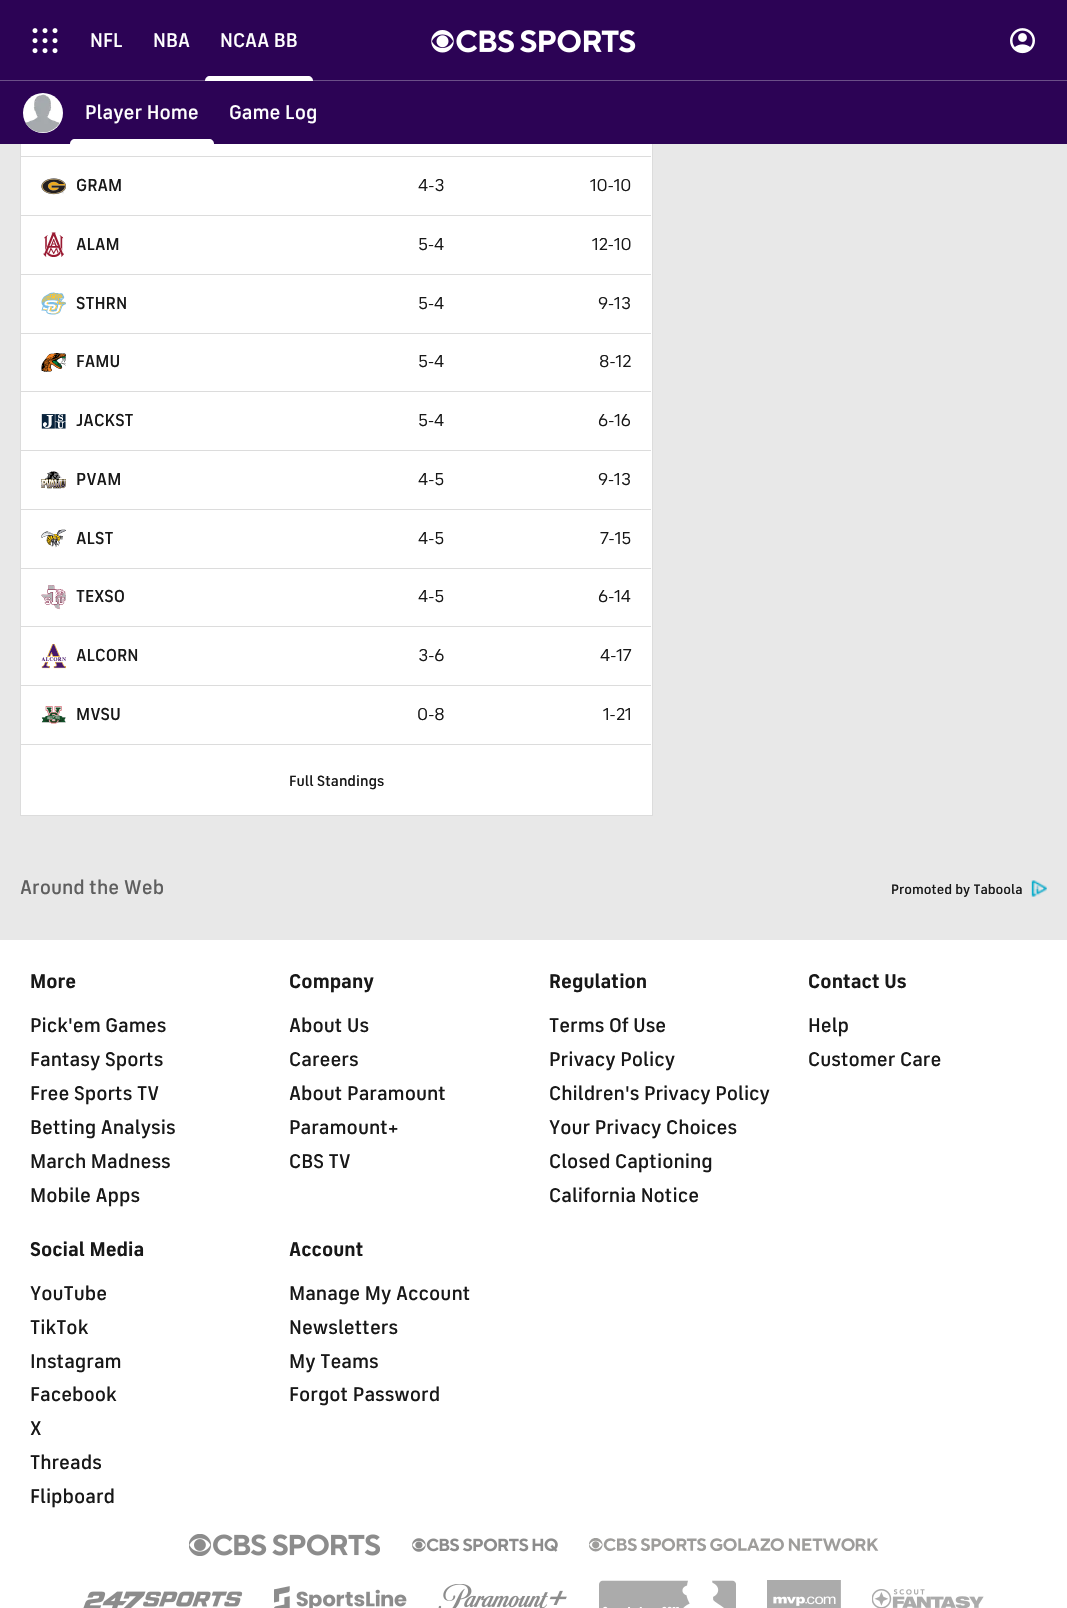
#include "include/core/SkBlurTypes.h"
#include "include/core/SkCanvas.h"
#include "include/core/SkData.h"
#include "include/core/SkFont.h"
#include "include/core/SkFontMgr.h"
#include "include/core/SkImage.h"
#include "include/core/SkMaskFilter.h"
#include "include/core/SkPaint.h"
#include "include/core/SkPathBuilder.h"
#include "include/core/SkTextBlob.h"
#include "include/effects/SkDashPathEffect.h"
#include "include/effects/SkGradientShader.h"
#include "include/utils/SkParsePath.h"

extern sk_sp<SkFontMgr> fontMgr;

void draw(SkCanvas* canvas) {
  SkPaint p;
  p.setAntiAlias(true);
  canvas->clear(SK_ColorWHITE);
  p.setColor(SkColorSetRGB(232, 232, 232));
  canvas->drawRect(SkRect::MakeLTRB(0, 144, 1067, 940), p);
  p.setColor(SK_ColorWHITE);
  canvas->drawRect(SkRect::MakeLTRB(21, 144, 652, 815), p);
  p.setStyle(SkPaint::kStroke_Style);
  p.setStrokeWidth(1);
  p.setColor(SkColorSetRGB(220, 220, 220));
  canvas->drawRect(SkRect::MakeLTRB(20.5f, -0.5f, 652.5f, 815.5f), p);
  p.setStyle(SkPaint::kFill_Style);
  p.setColor(SkColorSetRGB(44, 3, 85));
  canvas->drawRect(SkRect::MakeLTRB(0, 0, 1067, 80), p);
  p.setColor(SkColorSetRGB(107, 79, 136));
  canvas->drawRect(SkRect::MakeLTRB(0, 80, 1067, 81), p);
  canvas->drawImageRect(SkImages::DeferredFromEncodedData(SkData::MakeFromFileName("images/1.png")), SkRect::MakeLTRB(32, 28, 58, 54), SkSamplingOptions());
  p.setColor(SK_ColorWHITE);
  canvas->drawPath(SkPathBuilder().moveTo(210, 76).lineTo(308, 76).cubicTo(311, 76, 313, 78, 313, 81).lineTo(205, 81).cubicTo(205, 78, 207, 76, 210, 76).close().detach(), p);
  canvas->drawImageRect(SkImages::DeferredFromEncodedData(SkData::MakeFromFileName("images/2.png")), SkRect::MakeLTRB(431, 30, 454, 53), SkSamplingOptions());
  canvas->drawImageRect(SkImages::DeferredFromEncodedData(SkData::MakeFromFileName("images/3.png")), SkRect::MakeLTRB(456, 30, 636, 53), SkSamplingOptions());
  canvas->drawImageRect(SkImages::DeferredFromEncodedData(SkData::MakeFromFileName("images/4.png")), SkRect::MakeLTRB(1010, 28, 1035, 54), SkSamplingOptions());
  p.setColor(SkColorSetRGB(44, 3, 85));
  canvas->drawRect(SkRect::MakeLTRB(0, 81, 1067, 144), p);
  p.setColor(SK_ColorWHITE);
  canvas->drawCircle(43, 113, 20, p);
  canvas->drawImageRect(SkImages::DeferredFromEncodedData(SkData::MakeFromFileName("images/5.png")), SkRect::MakeLTRB(25, 94, 60, 133), SkSamplingOptions());
  canvas->drawPath(SkPathBuilder().moveTo(75, 139).lineTo(209, 139).cubicTo(212, 139, 214, 141, 214, 144).lineTo(70, 144).cubicTo(70, 141, 72, 139, 75, 139).close().detach(), p);
  p.setColor(SkColorSetRGB(220, 220, 220));
  canvas->drawRect(SkRect::MakeLTRB(21, 156, 651, 157), p);
  canvas->drawRect(SkRect::MakeLTRB(21, 215, 651, 216), p);
  canvas->drawImageRect(SkImages::DeferredFromEncodedData(SkData::MakeFromFileName("images/6.png")), SkRect::MakeLTRB(41, 178, 66, 195), SkSamplingOptions());
  canvas->drawRect(SkRect::MakeLTRB(21, 274, 651, 275), p);
  canvas->drawImageRect(SkImages::DeferredFromEncodedData(SkData::MakeFromFileName("images/7.png")), SkRect::MakeLTRB(43, 232, 64, 257), SkSamplingOptions());
  canvas->drawRect(SkRect::MakeLTRB(21, 333, 651, 334), p);
  canvas->drawImageRect(SkImages::DeferredFromEncodedData(SkData::MakeFromFileName("images/8.png")), SkRect::MakeLTRB(41, 292, 66, 315), SkSamplingOptions());
  canvas->drawRect(SkRect::MakeLTRB(21, 391, 651, 392), p);
  canvas->drawImageRect(SkImages::DeferredFromEncodedData(SkData::MakeFromFileName("images/9.png")), SkRect::MakeLTRB(41, 353, 66, 372), SkSamplingOptions());
  canvas->drawRect(SkRect::MakeLTRB(21, 450, 651, 451), p);
  canvas->drawImageRect(SkImages::DeferredFromEncodedData(SkData::MakeFromFileName("images/10.png")), SkRect::MakeLTRB(41, 414, 66, 429), SkSamplingOptions());
  canvas->drawRect(SkRect::MakeLTRB(21, 509, 651, 510), p);
  canvas->drawImageRect(SkImages::DeferredFromEncodedData(SkData::MakeFromFileName("images/11.png")), SkRect::MakeLTRB(41, 471, 66, 489), SkSamplingOptions());
  canvas->drawRect(SkRect::MakeLTRB(21, 568, 651, 569), p);
  canvas->drawImageRect(SkImages::DeferredFromEncodedData(SkData::MakeFromFileName("images/12.png")), SkRect::MakeLTRB(41, 529, 66, 548), SkSamplingOptions());
  canvas->drawRect(SkRect::MakeLTRB(21, 626, 651, 627), p);
  canvas->drawImageRect(SkImages::DeferredFromEncodedData(SkData::MakeFromFileName("images/13.png")), SkRect::MakeLTRB(41, 585, 66, 610), SkSamplingOptions());
  canvas->drawRect(SkRect::MakeLTRB(21, 685, 651, 686), p);
  canvas->drawImageRect(SkImages::DeferredFromEncodedData(SkData::MakeFromFileName("images/14.png")), SkRect::MakeLTRB(41, 644, 66, 669), SkSamplingOptions());
  canvas->drawImageRect(SkImages::DeferredFromEncodedData(SkData::MakeFromFileName("images/15.png")), SkRect::MakeLTRB(41, 706, 66, 724), SkSamplingOptions());
  canvas->drawRect(SkRect::MakeLTRB(21, 744, 651, 745), p);
  canvas->drawImageRect(SkImages::DeferredFromEncodedData(SkData::MakeFromFileName("images/16.png")), SkRect::MakeLTRB(1031, 880, 1047, 897), SkSamplingOptions());
  canvas->drawImageRect(SkImages::DeferredFromEncodedData(SkData::MakeFromFileName("images/17.png")), SkRect::MakeLTRB(189, 1534, 380, 1556), SkSamplingOptions());
  canvas->drawImageRect(SkImages::DeferredFromEncodedData(SkData::MakeFromFileName("images/18.png")), SkRect::MakeLTRB(412, 1538, 558, 1552), SkSamplingOptions());
  canvas->drawImageRect(SkImages::DeferredFromEncodedData(SkData::MakeFromFileName("images/19.png")), SkRect::MakeLTRB(589, 1538, 879, 1552), SkSamplingOptions());
  canvas->drawImageRect(SkImages::DeferredFromEncodedData(SkData::MakeFromFileName("images/20.png")), SkRect::MakeLTRB(83, 1591, 243, 1608), SkSamplingOptions());
  canvas->drawImageRect(SkImages::DeferredFromEncodedData(SkData::MakeFromFileName("images/21.png")), SkRect::MakeLTRB(274, 1586, 407, 1608), SkSamplingOptions());
  canvas->drawImageRect(SkImages::DeferredFromEncodedData(SkData::MakeFromFileName("images/22.png")), SkRect::MakeLTRB(438, 1584, 567, 1608), SkSamplingOptions());
  canvas->drawImageRect(SkImages::DeferredFromEncodedData(SkData::MakeFromFileName("images/23.png")), SkRect::MakeLTRB(599, 1580, 736, 1608), SkSamplingOptions());
  canvas->drawImageRect(SkImages::DeferredFromEncodedData(SkData::MakeFromFileName("images/24.png")), SkRect::MakeLTRB(767, 1580, 841, 1608), SkSamplingOptions());
  canvas->drawImageRect(SkImages::DeferredFromEncodedData(SkData::MakeFromFileName("images/25.png")), SkRect::MakeLTRB(872, 1589, 984, 1608), SkSamplingOptions());
  SkFont font1(fontMgr->matchFamilyStyle("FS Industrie", SkFontStyle(500, SkFontStyle::kNormal_Width, SkFontStyle::kUpright_Slant)), 20);
  font1.setSubpixel(true);
  p.setColor(SK_ColorWHITE);
  canvas->drawString("NFL", 90, 47, font1, p);
  canvas->drawString("NBA", 153, 47, font1, p);
  canvas->drawString("NCAA BB", 220, 47, font1, p);
  canvas->drawString("Player Home", 85, 119, font1, p);
  canvas->drawString("Game Log", 229, 119, font1, p);
  SkFont font2(fontMgr->matchFamilyStyle("FS Industrie", SkFontStyle(500, SkFontStyle::kNormal_Width, SkFontStyle::kUpright_Slant)), 17.5f);
  font2.setSubpixel(true);
  p.setColor(SkColorSetRGB(24, 24, 24));
  canvas->drawString("GRAM", 76, 191, font2, p);
  SkFont font3(fontMgr->matchFamilyStyle("FS Industrie", SkFontStyle::Normal()), 17.5f);
  font3.setSubpixel(true);
  canvas->drawString("4-3", 418, 191, font3, p);
  canvas->drawString("10-10", 590, 191, font3, p);
  canvas->drawString("ALAM", 76, 250, font2, p);
  canvas->drawString("5-4", 418, 250, font3, p);
  canvas->drawString("12-10", 592, 250, font3, p);
  canvas->drawString("STHRN", 76, 309, font2, p);
  canvas->drawString("5-4", 418, 309, font3, p);
  canvas->drawString("9-13", 598, 309, font3, p);
  canvas->drawString("FAMU", 76, 367, font2, p);
  canvas->drawString("5-4", 418, 367, font3, p);
  canvas->drawString("8-12", 599, 367, font3, p);
  canvas->drawString("JACKST", 76, 426, font2, p);
  canvas->drawString("5-4", 418, 426, font3, p);
  canvas->drawString("6-16", 598, 426, font3, p);
  canvas->drawString("PVAM", 76, 485, font2, p);
  canvas->drawString("4-5", 418, 485, font3, p);
  canvas->drawString("9-13", 598, 485, font3, p);
  canvas->drawString("ALST", 76, 544, font2, p);
  canvas->drawString("4-5", 418, 544, font3, p);
  canvas->drawString("7-15", 600, 544, font3, p);
  canvas->drawString("TEXSO", 76, 602, font2, p);
  canvas->drawString("4-5", 418, 602, font3, p);
  canvas->drawString("6-14", 598, 602, font3, p);
  canvas->drawString("ALCORN", 76, 661, font2, p);
  canvas->drawString("3-6", 418, 661, font3, p);
  canvas->drawString("4-17", 600, 661, font3, p);
  canvas->drawString("MVSU", 76, 720, font2, p);
  canvas->drawString("0-8", 417, 720, font3, p);
  canvas->drawString("1-21", 603, 720, font3, p);
  SkFont font4(fontMgr->matchFamilyStyle("FS Industrie", SkFontStyle(500, SkFontStyle::kNormal_Width, SkFontStyle::kUpright_Slant)), 15);
  font4.setSubpixel(true);
  canvas->drawString("Full Standings", 289, 786, font4, p);
  p.setColor(SkColorSetRGB(95, 95, 95));
  canvas->drawString("Around the Web", 20, 894, font1, p);
  SkFont font5(fontMgr->matchFamilyStyle("FS Industrie", SkFontStyle(500, SkFontStyle::kNormal_Width, SkFontStyle::kUpright_Slant)), 13.75f);
  font5.setSubpixel(true);
  p.setColor(SkColorSetRGB(24, 24, 24));
  canvas->drawString("Promoted by Taboola", 891, 894, font5, p);
  SkFont font6(fontMgr->matchFamilyStyle("FS Industrie", SkFontStyle::Bold()), 20);
  font6.setSubpixel(true);
  canvas->drawString("More", 30, 988, font6, p);
  canvas->drawString("Pick'em Games", 30, 1032, font1, p);
  canvas->drawString("Fantasy Sports", 30, 1066, font1, p);
  canvas->drawString("Free Sports TV", 30, 1100, font1, p);
  canvas->drawString("Betting Analysis", 30, 1134, font1, p);
  canvas->drawString("March Madness", 30, 1168, font1, p);
  canvas->drawString("Mobile Apps", 30, 1202, font1, p);
  canvas->drawString("Company", 289, 988, font6, p);
  canvas->drawString("About Us", 289, 1032, font1, p);
  canvas->drawString("Careers", 289, 1066, font1, p);
  canvas->drawString("About Paramount", 289, 1100, font1, p);
  canvas->drawString("Paramount+", 289, 1134, font1, p);
  canvas->drawString("CBS TV", 289, 1168, font1, p);
  canvas->drawString("Regulation", 549, 988, font6, p);
  canvas->drawString("Terms Of Use", 549, 1032, font1, p);
  canvas->drawString("Privacy Policy", 549, 1066, font1, p);
  canvas->drawString("Children's Privacy Policy", 549, 1100, font1, p);
  canvas->drawString("Your Privacy Choices", 549, 1134, font1, p);
  canvas->drawString("Closed Captioning", 549, 1168, font1, p);
  canvas->drawString("California Notice", 549, 1202, font1, p);
  canvas->drawString("Contact Us", 808, 988, font6, p);
  canvas->drawString("Help", 808, 1032, font1, p);
  canvas->drawString("Customer Care", 808, 1066, font1, p);
  canvas->drawString("Social Media", 30, 1256, font6, p);
  canvas->drawString("YouTube", 30, 1300, font1, p);
  canvas->drawString("TikTok", 30, 1334, font1, p);
  canvas->drawString("Instagram", 30, 1368, font1, p);
  canvas->drawString("Facebook", 30, 1401, font1, p);
  canvas->drawString("X", 30, 1435, font1, p);
  canvas->drawString("Threads", 30, 1469, font1, p);
  canvas->drawString("Flipboard", 30, 1503, font1, p);
  canvas->drawString("Account", 289, 1256, font6, p);
  canvas->drawString("Manage My Account", 289, 1300, font1, p);
  canvas->drawString("Newsletters", 289, 1334, font1, p);
  canvas->drawString("My Teams", 289, 1368, font1, p);
  canvas->drawString("Forgot Password", 289, 1401, font1, p);
}
